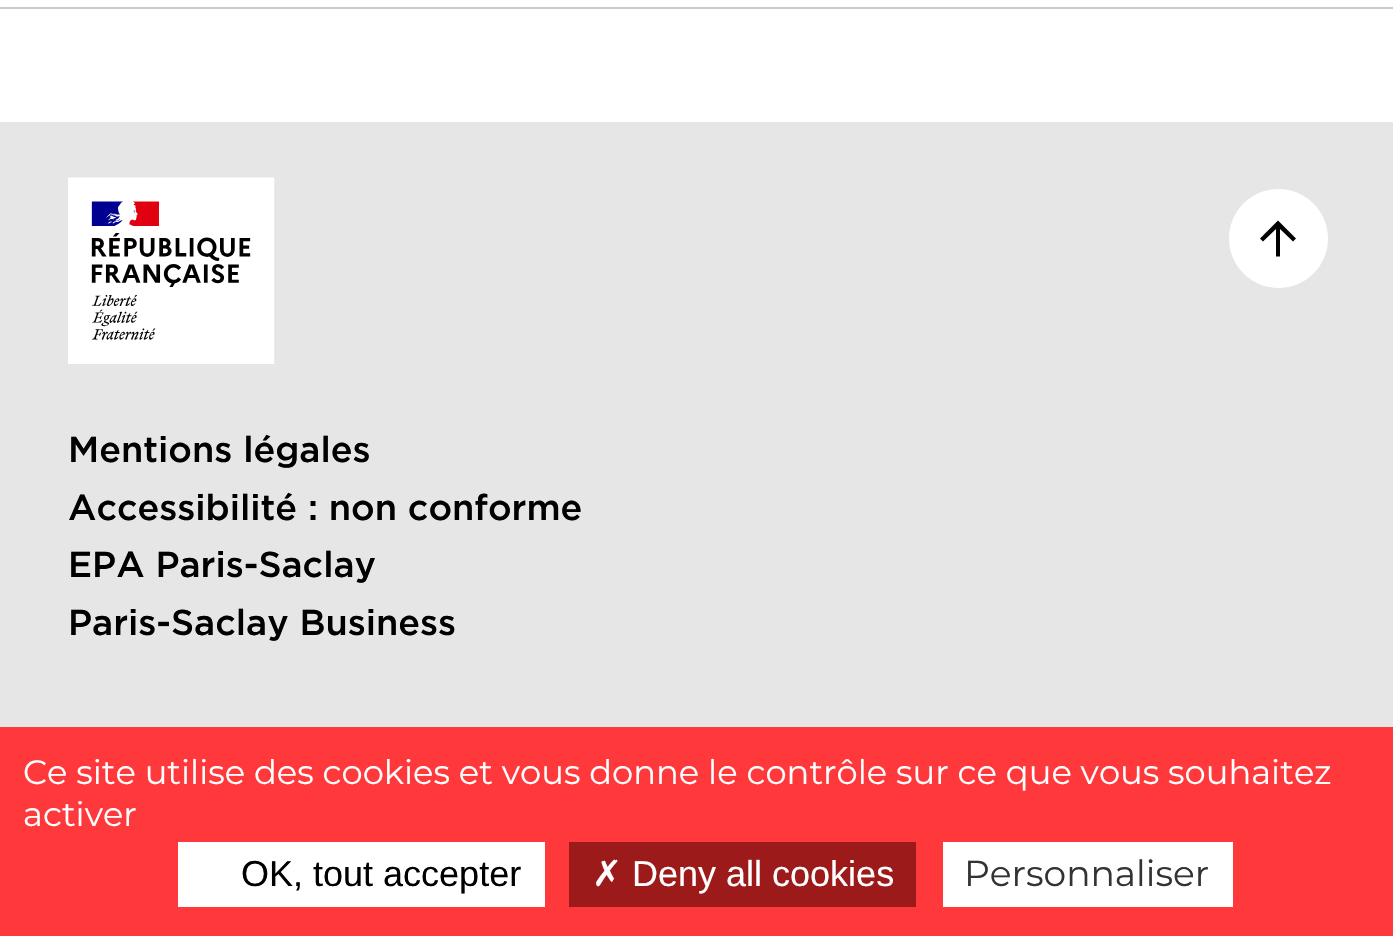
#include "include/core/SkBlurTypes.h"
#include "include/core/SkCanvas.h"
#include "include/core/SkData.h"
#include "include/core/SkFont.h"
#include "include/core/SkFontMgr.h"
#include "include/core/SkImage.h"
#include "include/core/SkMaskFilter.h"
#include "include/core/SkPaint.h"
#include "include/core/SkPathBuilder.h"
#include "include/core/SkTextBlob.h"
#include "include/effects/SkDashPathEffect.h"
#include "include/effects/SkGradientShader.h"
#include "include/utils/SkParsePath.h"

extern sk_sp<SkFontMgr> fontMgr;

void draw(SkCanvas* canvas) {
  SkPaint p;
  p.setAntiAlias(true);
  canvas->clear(SK_ColorWHITE);
  p.setColor(SkColorSetRGB(202, 202, 202));
  canvas->drawRect(SkRect::MakeLTRB(0, 7, 1393, 9), p);
  p.setColor(SkColorSetRGB(230, 230, 230));
  canvas->drawRect(SkRect::MakeLTRB(0, 122, 1393, 727), p);
  p.setColor(SK_ColorWHITE);
  canvas->drawCircle(1278.5f, 238.5f, 49.5f, p);
  p.setColor(SK_ColorBLACK);
  canvas->drawPath(SkPathBuilder().moveTo(1260, 238.5f).lineTo(1278, 220.5f).lineTo(1296, 238.5f).lineTo(1293, 241.5f).lineTo(1280, 229).lineTo(1280, 256.5f).lineTo(1276, 256.5f).lineTo(1276, 229).lineTo(1263, 241.5f).close().detach(), p);
  canvas->drawImageRect(SkImages::DeferredFromEncodedData(SkData::MakeFromFileName("images/1.png")), SkRect::MakeLTRB(68, 177, 275, 364), SkSamplingOptions());
  p.setColor(SkColorSetRGB(254, 56, 59));
  canvas->drawRect(SkRect::MakeLTRB(0, 727, 1393, 936), p);
  p.setColor(SK_ColorWHITE);
  canvas->drawRect(SkRect::MakeLTRB(178, 842, 545, 907), p);
  p.setColor(SkColorSetRGB(156, 26, 26));
  canvas->drawRect(SkRect::MakeLTRB(569, 842, 916, 907), p);
  p.setColor(SK_ColorWHITE);
  canvas->drawRect(SkRect::MakeLTRB(943, 842, 1233, 907), p);
  SkFont font1(fontMgr->matchFamilyStyle("Gotham", SkFontStyle(500, SkFontStyle::kNormal_Width, SkFontStyle::kUpright_Slant)), 36);
  font1.setSubpixel(true);
  p.setColor(SK_ColorBLACK);
  canvas->drawString("Mentions légales", 68, 462, font1, p);
  canvas->drawString("Accessibilité : non conforme", 68, 520, font1, p);
  canvas->drawString("EPA Paris-Saclay", 68, 577, font1, p);
  canvas->drawString("Paris-Saclay Business", 68, 635, font1, p);
  SkFont font2(fontMgr->matchFamilyStyle("Montserrat", SkFontStyle::Normal()), 33.75f);
  font2.setSubpixel(true);
  p.setColor(SK_ColorWHITE);
  canvas->drawString("Ce site utilise des cookies et vous donne le contrôle sur ce que vous souhaitez", 23, 784, font2, p);
  canvas->drawString("activer", 23, 826, font2, p);
  SkFont font3(fontMgr->matchFamilyStyle("Liberation Sans", SkFontStyle::Normal()), 36);
  font3.setSubpixel(true);
  p.setColor(SK_ColorBLACK);
  canvas->drawString("OK, tout accepter", 241, 886, font3, p);
  SkFont font4(fontMgr->matchFamilyStyle("DejaVu Sans", SkFontStyle::Normal()), 36);
  font4.setSubpixel(true);
  p.setColor(SK_ColorWHITE);
  canvas->drawString("✗", 592, 886, font4, p);
  canvas->drawString("Deny all cookies", 632, 886, font3, p);
  SkFont font5(fontMgr->matchFamilyStyle("Montserrat", SkFontStyle::Normal()), 36);
  font5.setSubpixel(true);
  p.setColor(SkColorSetRGB(51, 51, 51));
  canvas->drawString("Personnaliser", 964, 886, font5, p);
}
